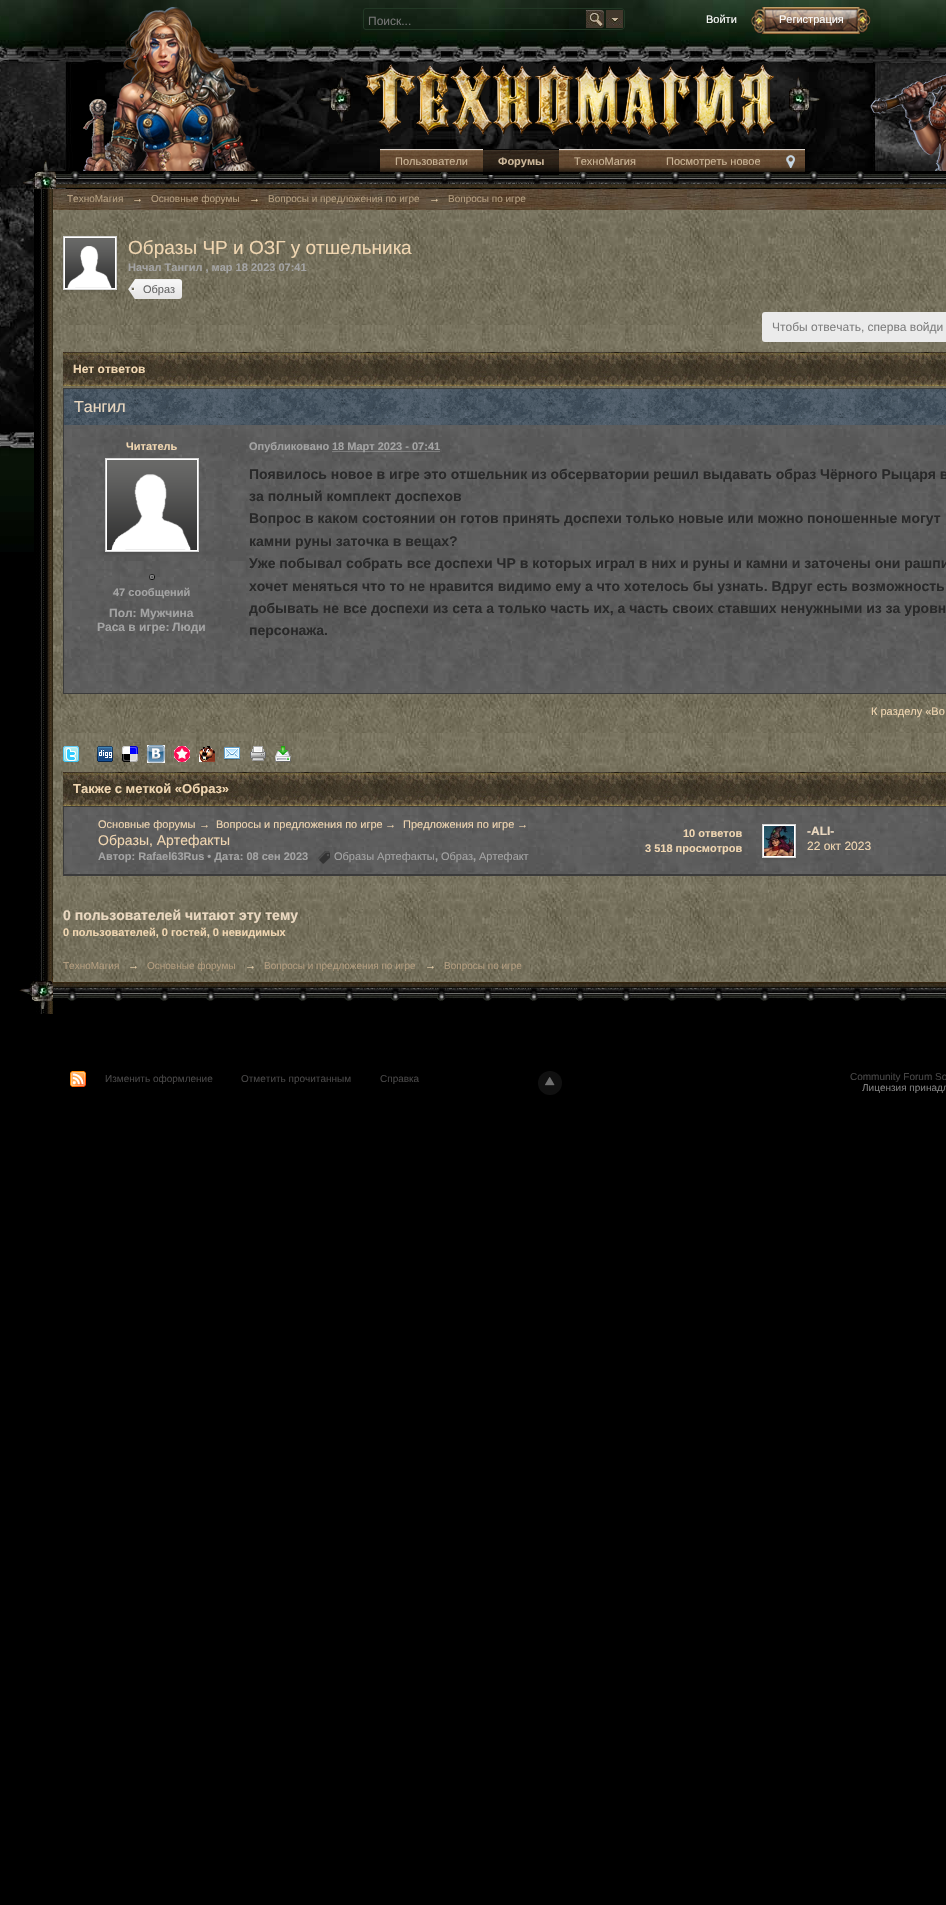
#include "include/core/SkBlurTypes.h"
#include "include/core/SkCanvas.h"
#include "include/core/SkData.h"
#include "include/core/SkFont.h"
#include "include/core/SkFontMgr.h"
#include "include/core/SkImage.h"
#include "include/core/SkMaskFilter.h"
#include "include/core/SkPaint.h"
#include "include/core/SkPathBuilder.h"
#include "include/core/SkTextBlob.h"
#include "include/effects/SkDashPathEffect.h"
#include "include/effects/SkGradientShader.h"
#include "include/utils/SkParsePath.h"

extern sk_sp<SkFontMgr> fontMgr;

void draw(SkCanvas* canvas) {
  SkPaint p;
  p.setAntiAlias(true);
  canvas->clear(SK_ColorBLACK);
  canvas->drawImageRect(SkImages::DeferredFromEncodedData(SkData::MakeFromFileName("images/1.png")), SkRect::MakeLTRB(0, 0, 946, 552), SkSamplingOptions());
  canvas->drawImageRect(SkImages::DeferredFromEncodedData(SkData::MakeFromFileName("images/2.png")), SkRect::MakeLTRB(83, 7, 946, 171), SkSamplingOptions());
  p.setStyle(SkPaint::kStroke_Style);
  p.setStrokeWidth(1);
  p.setColor(SkColorSetRGB(33, 55, 36));
  canvas->drawPath(SkPathBuilder().moveTo(366, 8.5f).lineTo(621, 8.5f).cubicTo(623, 8.5f, 624.5f, 10, 624.5f, 12).lineTo(624.5f, 26).cubicTo(624.5f, 28, 623, 29.5f, 621, 29.5f).lineTo(366, 29.5f).cubicTo(364.5f, 29.5f, 363.5f, 28.5f, 363.5f, 27).lineTo(363.5f, 11).cubicTo(363.5f, 9.5f, 364.5f, 8.5f, 366, 8.5f).close().detach(), p);
  canvas->drawImageRect(SkImages::DeferredFromEncodedData(SkData::MakeFromFileName("images/3.png")), SkRect::MakeLTRB(586, 10, 604, 28), SkSamplingOptions());
  p.setStyle(SkPaint::kFill_Style);
  p.setColor(SkColorSetARGB(51, 255, 255, 255));
  canvas->drawPath(SkPathBuilder(SkPathFillType::kEvenOdd).moveTo(586, 11).lineTo(598, 11).cubicTo(602.5f, 11, 604, 12.5f, 604, 15).cubicTo(604, 9, 601.5f, 10, 596, 10).lineTo(586, 10).close().moveTo(604, 25).lineTo(604, 25.5f).close().detach(), p);
  canvas->drawImageRect(SkImages::DeferredFromEncodedData(SkData::MakeFromFileName("images/4.png")), SkRect::MakeLTRB(606, 10, 623, 28), SkSamplingOptions());
  canvas->drawImageRect(SkImages::DeferredFromEncodedData(SkData::MakeFromFileName("images/5.png")), SkRect::MakeLTRB(319, 64, 821, 137), SkSamplingOptions());
  canvas->drawImageRect(SkImages::DeferredFromEncodedData(SkData::MakeFromFileName("images/6.png")), SkRect::MakeLTRB(751, 6, 871, 35), SkSamplingOptions());
  canvas->drawImageRect(SkImages::DeferredFromEncodedData(SkData::MakeFromFileName("images/13.png")), SkRect::MakeLTRB(23, 160, 946, 189), SkSamplingOptions());
  canvas->drawImageRect(SkImages::DeferredFromEncodedData(SkData::MakeFromFileName("images/7.png")), SkRect::MakeLTRB(380, 149, 483, 172), SkSamplingOptions());
  canvas->drawImageRect(SkImages::DeferredFromEncodedData(SkData::MakeFromFileName("images/8.png")), SkRect::MakeLTRB(483, 149, 559, 175), SkSamplingOptions());
  canvas->drawImageRect(SkImages::DeferredFromEncodedData(SkData::MakeFromFileName("images/9.png")), SkRect::MakeLTRB(559, 149, 651, 172), SkSamplingOptions());
  canvas->drawImageRect(SkImages::DeferredFromEncodedData(SkData::MakeFromFileName("images/10.png")), SkRect::MakeLTRB(651, 149, 776, 172), SkSamplingOptions());
  canvas->drawImageRect(SkImages::DeferredFromEncodedData(SkData::MakeFromFileName("images/11.png")), SkRect::MakeLTRB(776, 149, 805, 172), SkSamplingOptions());
  canvas->drawImageRect(SkImages::DeferredFromEncodedData(SkData::MakeFromFileName("images/12.png")), SkRect::MakeLTRB(786, 155, 795, 168), SkSamplingOptions());
  canvas->drawImageRect(SkImages::DeferredFromEncodedData(SkData::MakeFromFileName("images/14.png")), SkRect::MakeLTRB(34, 189, 53, 1014), SkSamplingOptions());
  canvas->drawImageRect(SkImages::DeferredFromEncodedData(SkData::MakeFromFileName("images/15.png")), SkRect::MakeLTRB(19, 976, 946, 1009), SkSamplingOptions());
  p.setColor(SkColorSetARGB(26, 0, 0, 0));
  p.setMaskFilter(SkMaskFilter::MakeBlur(kNormal_SkBlurStyle, 4.5f));
  canvas->drawRect(SkRect::MakeLTRB(53, 194, 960, 987), p);
  p.setMaskFilter(nullptr);
  canvas->drawImageRect(SkImages::DeferredFromEncodedData(SkData::MakeFromFileName("images/16.png")), SkRect::MakeLTRB(53, 210, 946, 982), SkSamplingOptions());
  canvas->drawImageRect(SkImages::DeferredFromEncodedData(SkData::MakeFromFileName("images/17.png")), SkRect::MakeLTRB(53, 189, 946, 210), SkSamplingOptions());
  p.setMaskFilter(SkMaskFilter::MakeBlur(kNormal_SkBlurStyle, 1));
  canvas->drawRect(SkRect::MakeLTRB(63, 238, 117, 292), p);
  p.setMaskFilter(nullptr);
  p.setColor(SK_ColorWHITE);
  canvas->drawRect(SkRect::MakeLTRB(63.5f, 236.5f, 116.5f, 289.5f), p);
  p.setStyle(SkPaint::kStroke_Style);
  p.setColor(SkColorSetRGB(213, 213, 213));
  canvas->drawRect(SkRect::MakeLTRB(63.5f, 236.5f, 116.5f, 289.5f), p);
  canvas->drawImageRect(SkImages::DeferredFromEncodedData(SkData::MakeFromFileName("images/18.png")), SkRect::MakeLTRB(65, 238, 115, 288), SkSamplingOptions());
  canvas->drawImageRect(SkImages::DeferredFromEncodedData(SkData::MakeFromFileName("images/19.png")), SkRect::MakeLTRB(128, 279, 182, 299), SkSamplingOptions());
  p.setStyle(SkPaint::kFill_Style);
  p.setColor(SkColorSetRGB(235, 235, 235));
  canvas->drawRoundRect(SkRect::MakeLTRB(762, 312, 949, 342), 3, 3, p);
  canvas->drawImageRect(SkImages::DeferredFromEncodedData(SkData::MakeFromFileName("images/20.png")), SkRect::MakeLTRB(63, 352, 946, 386), SkSamplingOptions());
  canvas->drawImageRect(SkImages::DeferredFromEncodedData(SkData::MakeFromFileName("images/21.png")), SkRect::MakeLTRB(64, 425, 946, 693), SkSamplingOptions());
  p.setStyle(SkPaint::kStroke_Style);
  p.setColor(SkColorSetRGB(59, 59, 59));
  canvas->drawRect(SkRect::MakeLTRB(63.5f, 388.5f, 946.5f, 693.5f), p);
  canvas->drawImageRect(SkImages::DeferredFromEncodedData(SkData::MakeFromFileName("images/22.png")), SkRect::MakeLTRB(64, 389, 946, 425), SkSamplingOptions());
  p.setStyle(SkPaint::kFill_Style);
  p.setColor(SkColorSetARGB(26, 0, 0, 0));
  p.setMaskFilter(SkMaskFilter::MakeBlur(kNormal_SkBlurStyle, 1));
  canvas->drawRect(SkRect::MakeLTRB(105, 460, 199, 554), p);
  p.setMaskFilter(nullptr);
  p.setColor(SK_ColorWHITE);
  canvas->drawRect(SkRect::MakeLTRB(105.5f, 458.5f, 198.5f, 551.5f), p);
  p.setStyle(SkPaint::kStroke_Style);
  p.setColor(SkColorSetRGB(213, 213, 213));
  canvas->drawRect(SkRect::MakeLTRB(105.5f, 458.5f, 198.5f, 551.5f), p);
  canvas->drawImageRect(SkImages::DeferredFromEncodedData(SkData::MakeFromFileName("images/23.png")), SkRect::MakeLTRB(107, 460, 197, 550), SkSamplingOptions());
  canvas->drawImageRect(SkImages::DeferredFromEncodedData(SkData::MakeFromFileName("images/24.png")), SkRect::MakeLTRB(149, 574, 155, 580), SkSamplingOptions());
  p.setColor(SkColorSetRGB(164, 164, 164));
  p.setPathEffect(SkDashPathEffect::Make({{1, 1}}, 0));
  canvas->drawPath(SkPathBuilder().moveTo(332.5f, 451.5f).lineTo(440.5f, 451.5f).detach(), p);
  p.setPathEffect(nullptr);
  canvas->drawImageRect(SkImages::DeferredFromEncodedData(SkData::MakeFromFileName("images/25.png")), SkRect::MakeLTRB(63, 746, 79, 762), SkSamplingOptions());
  canvas->drawImageRect(SkImages::DeferredFromEncodedData(SkData::MakeFromFileName("images/26.png")), SkRect::MakeLTRB(97, 746, 113, 762), SkSamplingOptions());
  canvas->drawImageRect(SkImages::DeferredFromEncodedData(SkData::MakeFromFileName("images/27.png")), SkRect::MakeLTRB(122, 746, 138, 762), SkSamplingOptions());
  canvas->drawImageRect(SkImages::DeferredFromEncodedData(SkData::MakeFromFileName("images/28.png")), SkRect::MakeLTRB(147, 745, 165, 763), SkSamplingOptions());
  canvas->drawImageRect(SkImages::DeferredFromEncodedData(SkData::MakeFromFileName("images/29.png")), SkRect::MakeLTRB(174, 746, 190, 762), SkSamplingOptions());
  canvas->drawImageRect(SkImages::DeferredFromEncodedData(SkData::MakeFromFileName("images/30.png")), SkRect::MakeLTRB(199, 746, 215, 762), SkSamplingOptions());
  canvas->drawImageRect(SkImages::DeferredFromEncodedData(SkData::MakeFromFileName("images/31.png")), SkRect::MakeLTRB(224, 747, 240, 760), SkSamplingOptions());
  canvas->drawImageRect(SkImages::DeferredFromEncodedData(SkData::MakeFromFileName("images/32.png")), SkRect::MakeLTRB(250, 746, 266, 761), SkSamplingOptions());
  canvas->drawImageRect(SkImages::DeferredFromEncodedData(SkData::MakeFromFileName("images/33.png")), SkRect::MakeLTRB(275, 746, 291, 762), SkSamplingOptions());
  canvas->drawImageRect(SkImages::DeferredFromEncodedData(SkData::MakeFromFileName("images/20.png")), SkRect::MakeLTRB(63, 772, 946, 806), SkSamplingOptions());
  canvas->drawImageRect(SkImages::DeferredFromEncodedData(SkData::MakeFromFileName("images/34.png")), SkRect::MakeLTRB(64, 807, 946, 874), SkSamplingOptions());
  p.setColor(SkColorSetRGB(59, 59, 59));
  canvas->drawRect(SkRect::MakeLTRB(63.5f, 806.5f, 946.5f, 875.5f), p);
  p.setStyle(SkPaint::kFill_Style);
  canvas->drawRect(SkRect::MakeLTRB(64, 874, 946, 875), p);
  canvas->drawImageRect(SkImages::DeferredFromEncodedData(SkData::MakeFromFileName("images/35.png")), SkRect::MakeLTRB(318, 851, 330, 864), SkSamplingOptions());
  p.setColor(SkColorSetARGB(26, 0, 0, 0));
  p.setMaskFilter(SkMaskFilter::MakeBlur(kNormal_SkBlurStyle, 1));
  canvas->drawRect(SkRect::MakeLTRB(762, 826, 796, 860), p);
  p.setMaskFilter(nullptr);
  p.setColor(SK_ColorWHITE);
  canvas->drawRect(SkRect::MakeLTRB(762.5f, 824.5f, 795.5f, 857.5f), p);
  p.setStyle(SkPaint::kStroke_Style);
  p.setColor(SkColorSetRGB(213, 213, 213));
  canvas->drawRect(SkRect::MakeLTRB(762.5f, 824.5f, 795.5f, 857.5f), p);
  canvas->drawImageRect(SkImages::DeferredFromEncodedData(SkData::MakeFromFileName("images/36.png")), SkRect::MakeLTRB(764, 826, 794, 856), SkSamplingOptions());
  canvas->drawImageRect(SkImages::DeferredFromEncodedData(SkData::MakeFromFileName("images/37.png")), SkRect::MakeLTRB(70, 1071, 86, 1087), SkSamplingOptions());
  p.setStyle(SkPaint::kFill_Style);
  p.setColor(SkColorSetRGB(16, 16, 16));
  canvas->drawCircle(550, 1083, 12, p);
  canvas->drawImageRect(SkImages::DeferredFromEncodedData(SkData::MakeFromFileName("images/38.png")), SkRect::MakeLTRB(545, 1077, 555, 1086), SkSamplingOptions());
  SkFont font1(fontMgr->matchFamilyStyle("Liberation Sans", SkFontStyle::Normal()), 12);
  font1.setSubpixel(true);
  p.setColor(SkColorSetRGB(117, 117, 117));
  canvas->drawString("Поиск...", 368, 25, font1, p);
  SkFont font2(fontMgr->matchFamilyStyle("Liberation Sans", SkFontStyle::Normal()), 11);
  font2.setSubpixel(true);
  p.setColor(SK_ColorWHITE);
  canvas->drawString("Войти", 706, 23, font2, p);
  canvas->drawString("Регистрация", 779, 23, font2, p);
  p.setColor(SkColorSetRGB(204, 183, 153));
  canvas->drawString("Пользователи", 395, 165, font2, p);
  SkFont font3(fontMgr->matchFamilyStyle("Liberation Sans", SkFontStyle::Bold()), 11);
  font3.setSubpixel(true);
  canvas->drawString("Форумы", 498, 165, font3, p);
  canvas->drawString("ТехноМагия", 574, 165, font2, p);
  canvas->drawString("Посмотреть новое", 666, 165, font2, p);
  SkFont font4(fontMgr->matchFamilyStyle("Liberation Sans", SkFontStyle::Normal()), 10);
  font4.setSubpixel(true);
  p.setColor(SkColorSetRGB(179, 157, 127));
  canvas->drawString("ТехноМагия", 67, 202, font4, p);
  p.setColor(SkColorSetRGB(240, 214, 177));
  canvas->drawString("→", 132, 202, font3, p);
  p.setColor(SkColorSetRGB(179, 157, 127));
  canvas->drawString("Основные форумы", 151, 202, font4, p);
  p.setColor(SkColorSetRGB(240, 214, 177));
  canvas->drawString("→", 249, 202, font3, p);
  p.setColor(SkColorSetRGB(179, 157, 127));
  canvas->drawString("Вопросы и предложения по игре", 268, 202, font4, p);
  p.setColor(SkColorSetRGB(240, 214, 177));
  canvas->drawString("→", 429, 202, font3, p);
  p.setColor(SkColorSetRGB(179, 157, 127));
  canvas->drawString("Вопросы по игре", 448, 202, font4, p);
  SkFont font5(fontMgr->matchFamilyStyle("Liberation Sans", SkFontStyle::Normal()), 19);
  font5.setSubpixel(true);
  p.setColor(SkColorSetRGB(240, 214, 177));
  canvas->drawString("Образы ЧР и ОЗГ у отшельника", 128, 254, font5, p);
  p.setColor(SkColorSetRGB(164, 164, 164));
  canvas->drawString("Начал Тангил , мар 18 2023 07:41", 128, 271, font3, p);
  p.setColor(SkColorSetRGB(101, 101, 101));
  canvas->drawString("Образ", 143, 293, font2, p);
  p.setColor(SkColorSetRGB(127, 127, 127));
  canvas->drawString("Чтобы отвечать, сперва войди", 772, 331, font1, p);
  SkFont font6(fontMgr->matchFamilyStyle("Liberation Sans", SkFontStyle::Bold()), 12);
  font6.setSubpixel(true);
  p.setColor(SkColorSetRGB(240, 214, 177));
  canvas->drawString("Нет ответов", 73, 373, font6, p);
  SkFont font7(fontMgr->matchFamilyStyle("Liberation Sans", SkFontStyle::Normal()), 16);
  font7.setSubpixel(true);
  p.setColor(SkColorSetRGB(234, 216, 192));
  canvas->drawString("Тангил", 74, 412, font7, p);
  p.setColor(SkColorSetRGB(240, 214, 177));
  canvas->drawString("Читатель", 126, 450, font3, p);
  p.setColor(SkColorSetRGB(164, 164, 164));
  canvas->drawString("47 сообщений", 113, 596, font3, p);
  canvas->drawString("Пол:", 109, 617, font6, p);
  canvas->drawString("Мужчина", 140, 617, font6, p);
  canvas->drawString("Раса в игре:", 97, 631, font6, p);
  canvas->drawString("Люди", 172, 631, font6, p);
  canvas->drawString("Опубликовано", 249, 450, font3, p);
  canvas->drawString("18 Март 2023 - 07:41", 332, 450, font3, p);
  SkFont font8(fontMgr->matchFamilyStyle("Liberation Sans", SkFontStyle::Bold()), 14);
  font8.setSubpixel(true);
  p.setColor(SkColorSetRGB(40, 40, 40));
  canvas->drawString("Появилось новое в игре это отшельник из обсерватории решил выдавать образ Чёрного Рыцаря в", 249, 479, font8, p);
  canvas->drawString("за полный комплект доспехов", 249, 501, font8, p);
  canvas->drawString("Вопрос в каком состоянии он готов принять доспехи только новые или можно поношенные могут", 249, 523, font8, p);
  canvas->drawString("камни руны заточка в вещах?", 249, 546, font8, p);
  canvas->drawString("Уже побывал собрать все доспехи ЧР в которых играл в них и руны и камни и заточены они рашпи", 249, 568, font8, p);
  canvas->drawString("хочет меняться что то не нравится видимо ему а что хотелось бы узнать. Вдруг есть возможность", 249, 591, font8, p);
  canvas->drawString("добывать не все доспехи из сета а только часть их, а часть своих ставших ненужными из за уровн", 249, 613, font8, p);
  canvas->drawString("персонажа.", 249, 635, font8, p);
  p.setColor(SkColorSetRGB(240, 214, 177));
  canvas->drawString("К разделу «Во", 871, 715, font2, p);
  SkFont font9(fontMgr->matchFamilyStyle("Liberation Sans", SkFontStyle::Bold()), 13);
  font9.setSubpixel(true);
  canvas->drawString("Также с меткой «Образ»", 73, 793, font9, p);
  canvas->drawString("Основные форумы", 98, 828, font2, p);
  canvas->drawString("→", 199, 828, font3, p);
  canvas->drawString("Вопросы и предложения по игре", 216, 828, font2, p);
  canvas->drawString("→", 385, 828, font3, p);
  canvas->drawString("Предложения по игре", 403, 828, font2, p);
  canvas->drawString("→", 517, 828, font3, p);
  SkFont font10(fontMgr->matchFamilyStyle("Liberation Sans", SkFontStyle::Normal()), 14);
  font10.setSubpixel(true);
  canvas->drawString("Образы, Артефакты", 98, 845, font10, p);
  p.setColor(SkColorSetRGB(164, 164, 164));
  canvas->drawString("Автор: Rafael63Rus • Дата: 08 сен 2023", 98, 860, font3, p);
  canvas->drawString("Образы Артефакты", 334, 860, font2, p);
  canvas->drawString(",", 435, 860, font3, p);
  canvas->drawString("Образ", 441, 860, font2, p);
  canvas->drawString(",", 473, 860, font3, p);
  canvas->drawString("Артефакт", 479, 860, font2, p);
  p.setColor(SkColorSetRGB(240, 214, 177));
  canvas->drawString("10 ответов", 683, 837, font3, p);
  canvas->drawString("3 518 просмотров", 645, 852, font3, p);
  p.setColor(SkColorSetRGB(234, 216, 192));
  canvas->drawString("-ALI-", 807, 835, font6, p);
  p.setColor(SkColorSetRGB(240, 214, 177));
  canvas->drawString("22 окт 2023", 807, 850, font1, p);
  p.setColor(SkColorSetRGB(234, 216, 192));
  canvas->drawString("0 пользователей читают эту тему", 63, 920, font8, p);
  p.setColor(SkColorSetRGB(240, 214, 177));
  canvas->drawString("0 пользователей, 0 гостей, 0 невидимых", 63, 936, font3, p);
  p.setColor(SkColorSetRGB(179, 157, 127));
  canvas->drawString("ТехноМагия", 63, 969, font4, p);
  p.setColor(SkColorSetRGB(240, 214, 177));
  canvas->drawString("→", 128, 969, font3, p);
  p.setColor(SkColorSetRGB(179, 157, 127));
  canvas->drawString("Основные форумы", 147, 969, font4, p);
  p.setColor(SkColorSetRGB(240, 214, 177));
  canvas->drawString("→", 245, 969, font3, p);
  p.setColor(SkColorSetRGB(179, 157, 127));
  canvas->drawString("Вопросы и предложения по игре", 264, 969, font4, p);
  p.setColor(SkColorSetRGB(240, 214, 177));
  canvas->drawString("→", 425, 969, font3, p);
  p.setColor(SkColorSetRGB(179, 157, 127));
  canvas->drawString("Вопросы по игре", 444, 969, font4, p);
  p.setColor(SkColorSetRGB(71, 70, 70));
  canvas->drawString("Изменить оформление", 105, 1082, font4, p);
  canvas->drawString("Отметить прочитанным", 241, 1082, font4, p);
  canvas->drawString("Справка", 380, 1082, font4, p);
  canvas->drawString("Community Forum So", 850, 1080, font4, p);
  p.setColor(SkColorSetRGB(127, 127, 127));
  canvas->drawString("Лицензия принадл", 862, 1091, font4, p);
}
